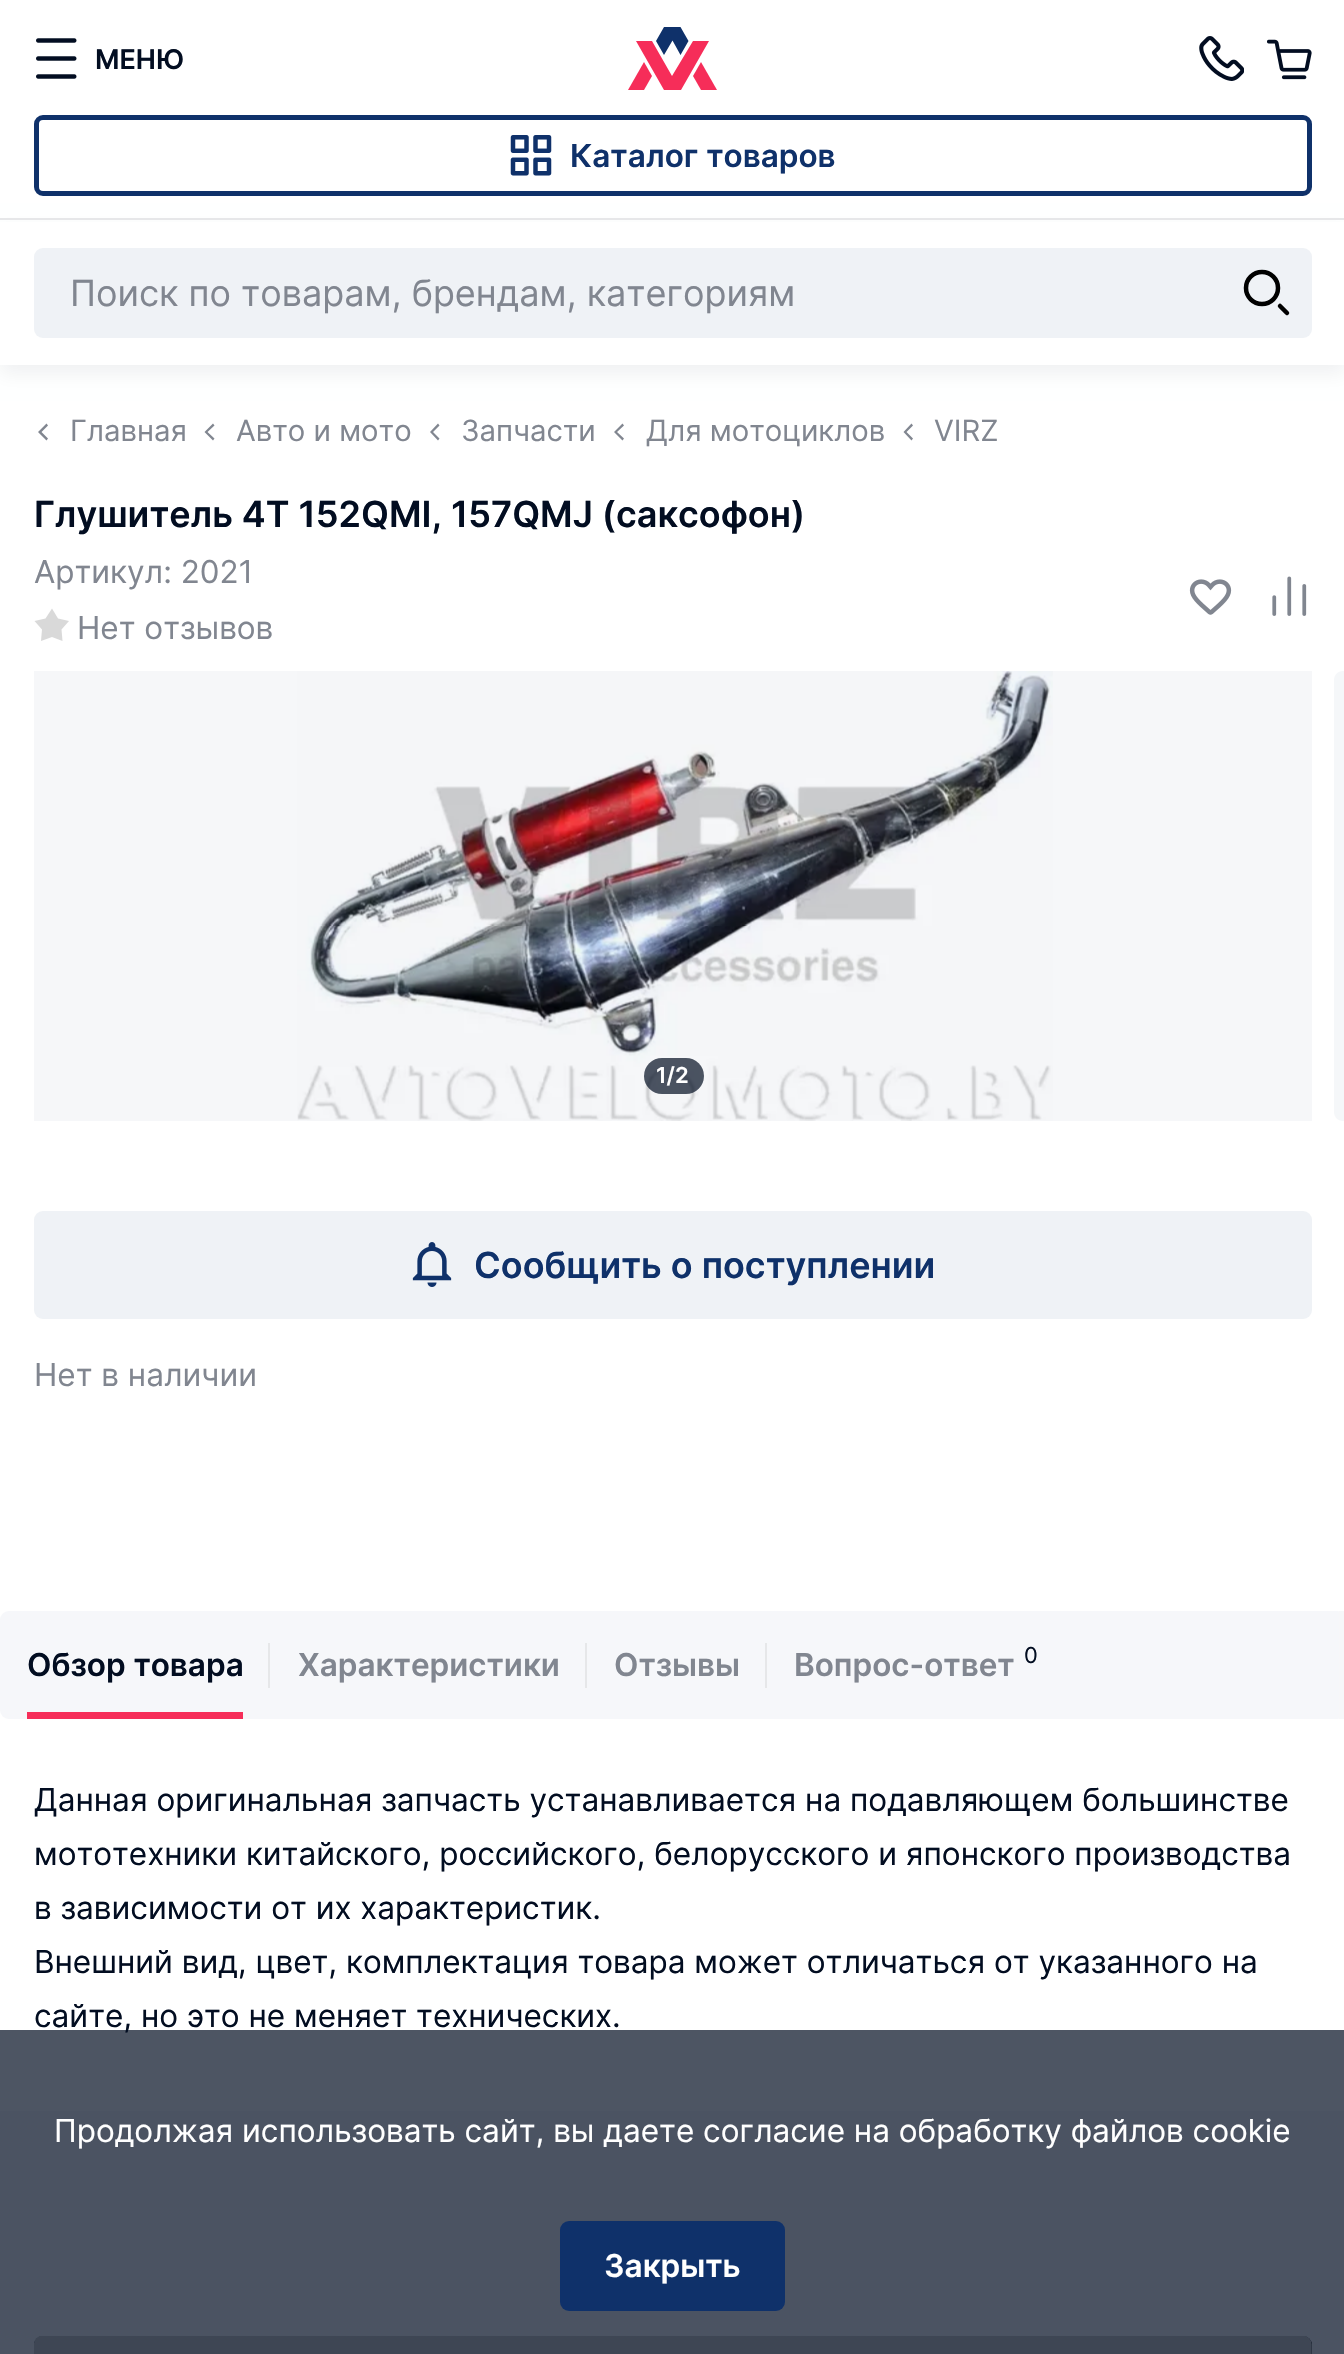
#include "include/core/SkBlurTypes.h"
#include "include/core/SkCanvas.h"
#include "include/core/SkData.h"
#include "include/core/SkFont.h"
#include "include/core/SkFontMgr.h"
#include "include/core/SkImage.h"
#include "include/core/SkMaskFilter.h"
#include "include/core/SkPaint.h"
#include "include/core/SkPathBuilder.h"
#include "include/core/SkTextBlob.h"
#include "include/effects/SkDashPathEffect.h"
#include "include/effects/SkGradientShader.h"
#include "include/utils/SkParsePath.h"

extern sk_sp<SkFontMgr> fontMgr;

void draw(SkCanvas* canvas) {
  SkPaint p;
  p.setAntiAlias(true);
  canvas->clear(SK_ColorWHITE);
  p.setColor(SkColorSetARGB(15, 2, 13, 33));
  p.setMaskFilter(SkMaskFilter::MakeBlur(kNormal_SkBlurStyle, 9));
  canvas->drawRect(SkRect::MakeLTRB(0, 230, 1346, 374), p);
  p.setMaskFilter(nullptr);
  p.setColor(SkColorSetRGB(230, 231, 233));
  canvas->drawRect(SkRect::MakeLTRB(0, 218, 1344, 220), p);
  canvas->drawImageRect(SkImages::DeferredFromEncodedData(SkData::MakeFromFileName("images/1.png")), SkRect::MakeLTRB(36, 38, 77, 79), SkSamplingOptions());
  p.setColor(SkColorSetRGB(246, 45, 89));
  canvas->drawPath(SkPathBuilder(SkPathFillType::kEvenOdd).moveTo(636, 41).lineTo(664, 90).lineTo(681, 90).lineTo(709, 41).lineTo(693, 41).lineTo(672, 76).lineTo(652, 41).close().detach(), p);
  canvas->drawPath(SkPathBuilder(SkPathFillType::kEvenOdd).moveTo(693, 76).lineTo(701, 62).lineTo(717, 90).lineTo(701, 90).close().detach(), p);
  p.setColor(SkColorSetRGB(15, 49, 106));
  canvas->drawPath(SkPathBuilder(SkPathFillType::kEvenOdd).moveTo(664, 55).lineTo(672.5f, 40.5f).lineTo(680.5f, 55).lineTo(688.5f, 41).lineTo(680.5f, 27).lineTo(664, 27).lineTo(656, 41).close().detach(), p);
  p.setColor(SkColorSetRGB(246, 45, 89));
  canvas->drawPath(SkPathBuilder(SkPathFillType::kEvenOdd).moveTo(644, 62).lineTo(628, 90).lineTo(644, 90).lineTo(652, 76).close().detach(), p);
  canvas->drawImageRect(SkImages::DeferredFromEncodedData(SkData::MakeFromFileName("images/2.png")), SkRect::MakeLTRB(1199, 36, 1244, 81), SkSamplingOptions());
  canvas->drawImageRect(SkImages::DeferredFromEncodedData(SkData::MakeFromFileName("images/3.png")), SkRect::MakeLTRB(1267, 39, 1312, 80), SkSamplingOptions());
  p.setStyle(SkPaint::kStroke_Style);
  p.setStrokeWidth(5);
  p.setColor(SkColorSetRGB(15, 49, 106));
  canvas->drawRoundRect(SkRect::MakeLTRB(36.5f, 117.5f, 1309.5f, 193.5f), 6.5f, 6.5f, p);
  canvas->drawImageRect(SkImages::DeferredFromEncodedData(SkData::MakeFromFileName("images/4.png")), SkRect::MakeLTRB(510, 135, 552, 176), SkSamplingOptions());
  p.setStyle(SkPaint::kFill_Style);
  p.setColor(SK_ColorWHITE);
  canvas->drawRect(SkRect::MakeLTRB(0, 222, 1344, 365), p);
  p.setColor(SkColorSetRGB(239, 242, 246));
  canvas->drawRoundRect(SkRect::MakeLTRB(34, 248, 1312, 338), 9, 9, p);
  p.setStyle(SkPaint::kStroke_Style);
  p.setStrokeWidth(4.5f);
  p.setColor(SK_ColorBLACK);
  canvas->drawCircle(1262, 288, 16, p);
  p.setStrokeCap(SkPaint::kRound_Cap);
  canvas->drawPath(SkPathBuilder().moveTo(1287, 313).lineTo(1280, 306).detach(), p);
  p.setStyle(SkPaint::kFill_Style);
  p.setColor(SkColorSetRGB(129, 134, 144));
  canvas->drawPath(SkPathBuilder().moveTo(46.5f, 440.5f).lineTo(48, 438.5f).lineTo(41.5f, 432).lineTo(48, 425.5f).lineTo(46.5f, 423.5f).lineTo(38, 432).close().detach(), p);
  canvas->drawPath(SkPathBuilder().moveTo(213, 440.5f).lineTo(214.5f, 438.5f).lineTo(207.5f, 432).lineTo(214.5f, 425.5f).lineTo(213, 423.5f).lineTo(204.5f, 432).close().detach(), p);
  canvas->drawPath(SkPathBuilder().moveTo(438, 440.5f).lineTo(439.5f, 438.5f).lineTo(433, 432).lineTo(439.5f, 425.5f).lineTo(438, 423.5f).lineTo(430, 432).close().detach(), p);
  canvas->drawPath(SkPathBuilder().moveTo(622.5f, 440.5f).lineTo(624, 438.5f).lineTo(617, 432).lineTo(624, 425.5f).lineTo(622.5f, 423.5f).lineTo(614, 432).close().detach(), p);
  canvas->drawPath(SkPathBuilder().moveTo(911.5f, 440.5f).lineTo(913, 438.5f).lineTo(906.5f, 432).lineTo(913, 425.5f).lineTo(911.5f, 423.5f).lineTo(903.5f, 432).close().detach(), p);
  p.setColor(SkColorSetRGB(217, 217, 217));
  canvas->drawPath(SkPathBuilder().moveTo(52, 608.5f).lineTo(58, 618.5f).lineTo(69, 621).lineTo(61.5f, 629.5f).lineTo(62.5f, 641).lineTo(52, 637).lineTo(41, 641).lineTo(42, 629.5f).lineTo(34.5f, 621).lineTo(45.5f, 618.5f).close().detach(), p);
  canvas->drawImageRect(SkImages::DeferredFromEncodedData(SkData::MakeFromFileName("images/5.png")), SkRect::MakeLTRB(1189, 579, 1232, 615), SkSamplingOptions());
  canvas->drawImageRect(SkImages::DeferredFromEncodedData(SkData::MakeFromFileName("images/6.png")), SkRect::MakeLTRB(1272, 576, 1307, 616), SkSamplingOptions());
  canvas->drawImageRect(SkImages::DeferredFromEncodedData(SkData::MakeFromFileName("images/7.png")), SkRect::MakeLTRB(297, 671, 1053, 1121), SkSamplingOptions());
  p.setColor(SkColorSetARGB(10, 15, 49, 106));
  canvas->drawRect(SkRect::MakeLTRB(34, 671, 1312, 1121), p);
  p.setColor(SkColorSetRGB(245, 247, 249));
  canvas->drawPath(SkPathBuilder().moveTo(1343, 671).lineTo(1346, 671).lineTo(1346, 1121).lineTo(1343, 1121).cubicTo(1338, 1121, 1334, 1117, 1334, 1112).lineTo(1334, 680).cubicTo(1334, 675, 1338, 671, 1343, 671).close().detach(), p);
  p.setColor(SkColorSetARGB(179, 2, 13, 33));
  canvas->drawRoundRect(SkRect::MakeLTRB(644, 1058, 704, 1094), 18, 18, p);
  p.setColor(SkColorSetRGB(239, 242, 246));
  canvas->drawRoundRect(SkRect::MakeLTRB(34, 1211, 1312, 1319), 9, 9, p);
  canvas->drawImageRect(SkImages::DeferredFromEncodedData(SkData::MakeFromFileName("images/8.png")), SkRect::MakeLTRB(412, 1242, 452, 1287), SkSamplingOptions());
  p.setColor(SkColorSetRGB(246, 247, 250));
  canvas->drawRoundRect(SkRect::MakeLTRB(0, 1611, 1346, 1719), 9, 9, p);
  p.setColor(SkColorSetRGB(230, 231, 233));
  canvas->drawRect(SkRect::MakeLTRB(268, 1643, 270, 1688), p);
  p.setColor(SkColorSetRGB(246, 45, 89));
  canvas->drawRect(SkRect::MakeLTRB(27, 1712, 243, 1719), p);
  p.setColor(SkColorSetRGB(230, 231, 233));
  canvas->drawRect(SkRect::MakeLTRB(585, 1643, 587, 1688), p);
  canvas->drawRect(SkRect::MakeLTRB(765, 1643, 767, 1688), p);
  {
    const SkColor colors[] = {SkColorSetRGB(246, 247, 249), SkColorSetARGB(204, 246, 247, 249), SkColorSetARGB(0, 246, 247, 249)};
    const float stops[] = {0, 0.2f, 1};
    const SkPoint ends[] = {{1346, 1665}, {1233, 1665}};
    p.setShader(SkGradientShader::MakeLinear(ends, colors, stops, 3, SkTileMode::kClamp));
    p.setAlpha(255);
  }
  canvas->drawRect(SkRect::MakeLTRB(1339, 1611, 1344, 1719), p);
  p.setShader(nullptr);
  p.setColor(SkColorSetRGB(246, 248, 250));
  canvas->drawRect(SkRect::MakeLTRB(0, 2111, 1344, 2354), p);
  p.setColor(SK_ColorBLACK);
  canvas->drawRoundRect(SkRect::MakeLTRB(34, 2336, 1312, 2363), 9, 9, p);
  canvas->drawImageRect(SkImages::DeferredFromEncodedData(SkData::MakeFromFileName("images/9.png")), SkRect::MakeLTRB(34, 2336, 1312, 2354), SkSamplingOptions());
  SkFont font1(fontMgr->matchFamilyStyle("Inter", SkFontStyle(600, SkFontStyle::kNormal_Width, SkFontStyle::kUpright_Slant)), 27);
  font1.setSubpixel(true);
  p.setColor(SkColorSetRGB(2, 13, 33));
  canvas->drawString("МЕНЮ", 95, 69, font1, p);
  SkFont font2(fontMgr->matchFamilyStyle("Inter", SkFontStyle(600, SkFontStyle::kNormal_Width, SkFontStyle::kUpright_Slant)), 31.5f);
  font2.setSubpixel(true);
  p.setColor(SkColorSetRGB(15, 49, 106));
  canvas->drawString("Каталог товаров", 570, 167, font2, p);
  SkFont font3(fontMgr->matchFamilyStyle("Inter", SkFontStyle::Normal()), 36);
  font3.setSubpixel(true);
  p.setColor(SkColorSetRGB(129, 134, 144));
  canvas->drawString("Поиск по товарам, брендам, категориям", 70, 306, font3, p);
  SkFont font4(fontMgr->matchFamilyStyle("Inter", SkFontStyle::Normal()), 29.25f);
  font4.setSubpixel(true);
  canvas->drawString("Главная", 70, 441, font4, p);
  canvas->drawString("Авто и мото", 236, 441, font4, p);
  canvas->drawString("Запчасти", 461, 441, font4, p);
  canvas->drawString("Для мотоциклов", 646, 441, font4, p);
  canvas->drawString("VIRZ", 934, 441, font4, p);
  SkFont font5(fontMgr->matchFamilyStyle("Inter", SkFontStyle(600, SkFontStyle::kNormal_Width, SkFontStyle::kUpright_Slant)), 36);
  font5.setSubpixel(true);
  p.setColor(SkColorSetRGB(2, 13, 33));
  canvas->drawString("Глушитель 4Т 152QMI, 157QMJ (саксофон)", 34, 527, font5, p);
  SkFont font6(fontMgr->matchFamilyStyle("Inter", SkFontStyle::Normal()), 31.5f);
  font6.setSubpixel(true);
  p.setColor(SkColorSetRGB(129, 134, 144));
  canvas->drawString("Артикул: 2021", 34, 583, font6, p);
  canvas->drawString("Нет отзывов", 77, 639, font6, p);
  SkFont font7(fontMgr->matchFamilyStyle("Inter", SkFontStyle(600, SkFontStyle::kNormal_Width, SkFontStyle::kUpright_Slant)), 22);
  font7.setSubpixel(true);
  p.setColor(SK_ColorWHITE);
  canvas->drawString("1/2", 656, 1083, font7, p);
  p.setColor(SkColorSetRGB(15, 49, 106));
  canvas->drawString("Сообщить о поступлении", 474, 1278, font5, p);
  p.setColor(SkColorSetRGB(129, 134, 144));
  canvas->drawString("Нет в наличии", 34, 1386, font6, p);
  p.setColor(SkColorSetRGB(2, 13, 33));
  canvas->drawString("Обзор товара", 27, 1676, font2, p);
  p.setColor(SkColorSetRGB(129, 134, 144));
  canvas->drawString("Характеристики", 298, 1676, font2, p);
  canvas->drawString("Отзывы", 614, 1676, font2, p);
  canvas->drawString("Вопрос-ответ", 794, 1676, font2, p);
  SkFont font8(fontMgr->matchFamilyStyle("Inter", SkFontStyle::Normal()), 22);
  font8.setSubpixel(true);
  p.setColor(SkColorSetRGB(2, 13, 33));
  canvas->drawString("0", 1024, 1663, font8, p);
  canvas->drawString("Данная оригинальная запчасть устанавливается на подавляющем большинстве", 34, 1811, font6, p);
  canvas->drawString("мототехники китайского, российского, белорусского и японского производства", 34, 1865, font6, p);
  canvas->drawString("в зависимости от их характеристик.", 34, 1919, font6, p);
  canvas->drawString("Внешний вид, цвет, комплектация товара может отличаться от указанного на", 34, 1973, font6, p);
  canvas->drawString("сайте, но это не меняет технических.", 34, 2027, font6, p);
  p.setColor(SkColorSetARGB(179, 2, 13, 33));
  canvas->drawRect(SkRect::MakeLTRB(0, 2030, 1344, 2354), p);
  p.setColor(SK_ColorWHITE);
  canvas->drawString("Продолжая использовать сайт, вы даете согласие на обработку файлов cookie", 54, 2142, font6, p);
  p.setColor(SkColorSetRGB(15, 49, 106));
  canvas->drawRoundRect(SkRect::MakeLTRB(560, 2221, 785, 2311), 9, 9, p);
  p.setColor(SK_ColorWHITE);
  canvas->drawString("Закрыть", 604, 2277, font2, p);
}
